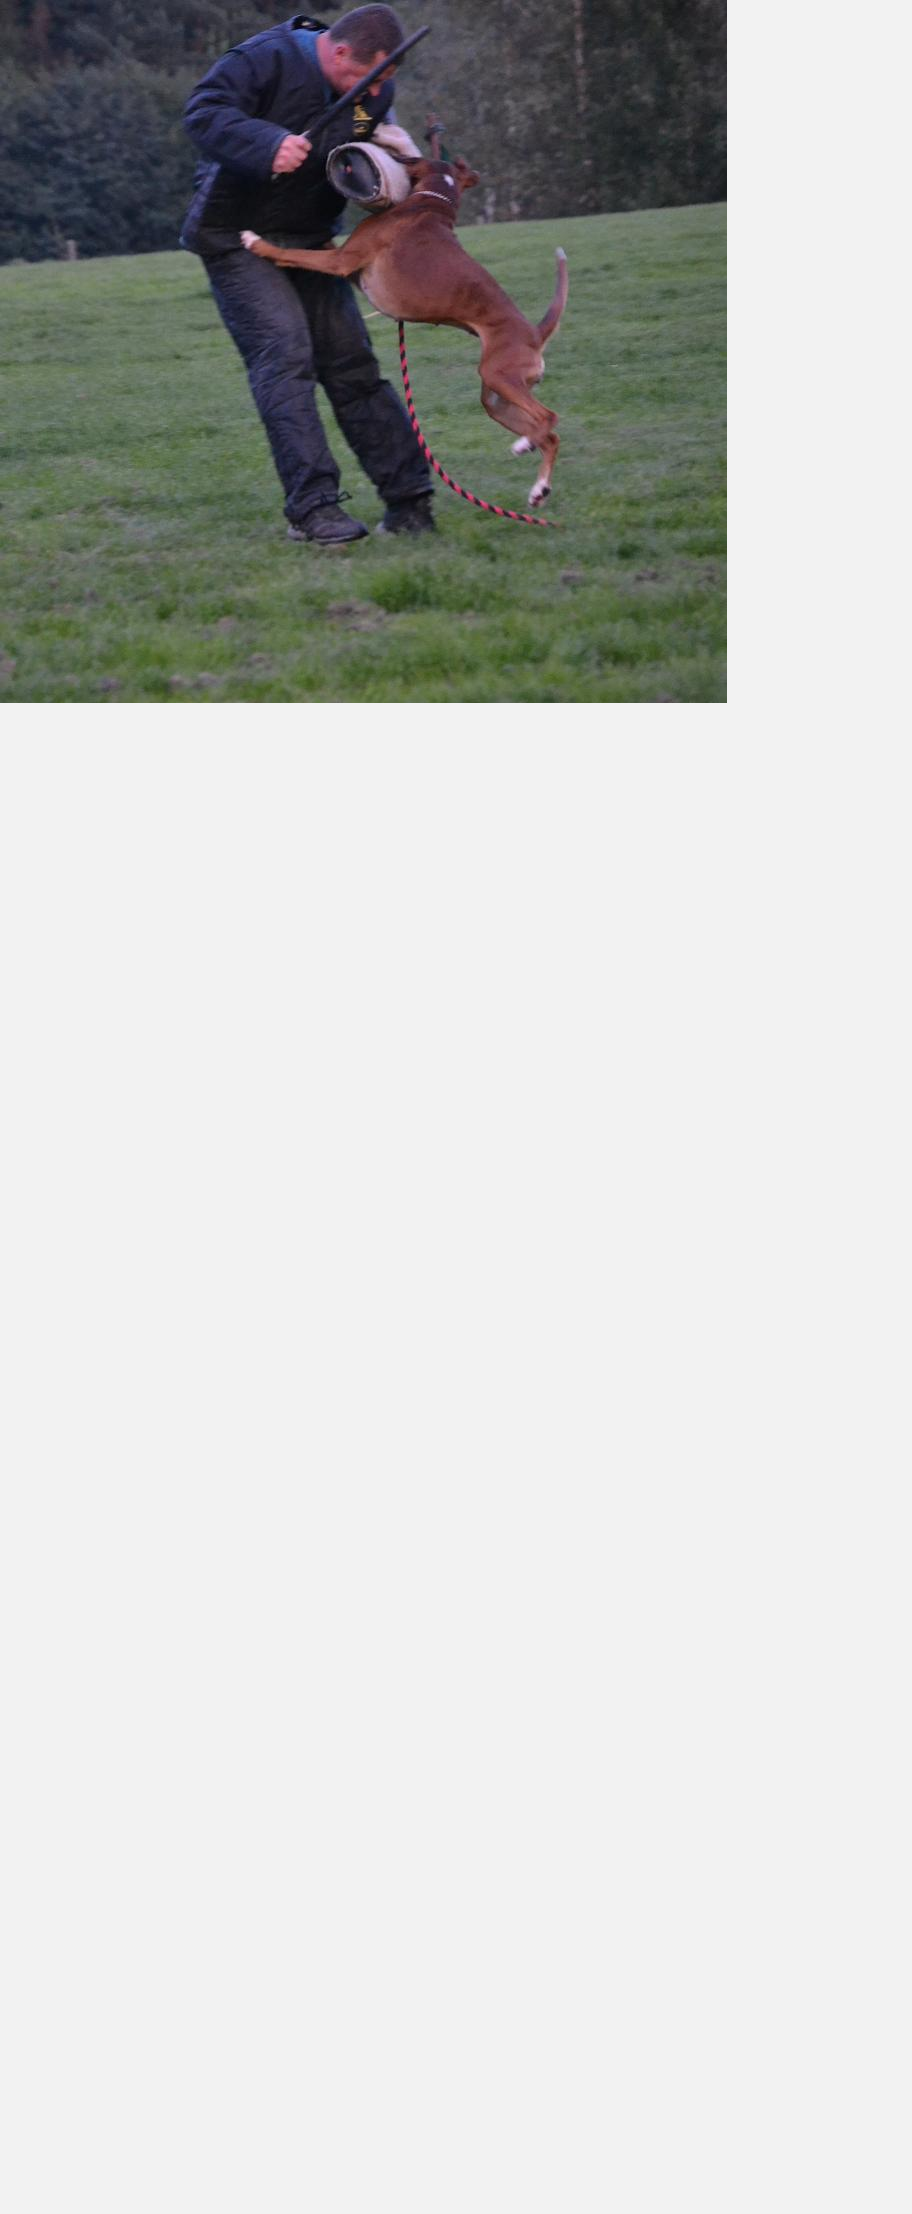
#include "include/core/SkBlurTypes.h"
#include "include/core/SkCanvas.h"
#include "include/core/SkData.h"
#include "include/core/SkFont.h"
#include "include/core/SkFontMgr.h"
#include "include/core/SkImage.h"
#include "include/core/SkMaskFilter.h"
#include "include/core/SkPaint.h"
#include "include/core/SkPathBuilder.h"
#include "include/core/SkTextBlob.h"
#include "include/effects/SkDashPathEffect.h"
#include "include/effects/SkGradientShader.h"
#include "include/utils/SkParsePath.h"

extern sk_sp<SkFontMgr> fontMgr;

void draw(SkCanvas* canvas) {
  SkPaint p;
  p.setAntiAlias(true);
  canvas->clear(SkColorSetRGB(242, 242, 242));
  canvas->drawImageRect(SkImages::DeferredFromEncodedData(SkData::MakeFromFileName("images/1.png")), SkRect::MakeLTRB(0, 0, 727, 703), SkSamplingOptions());
}
